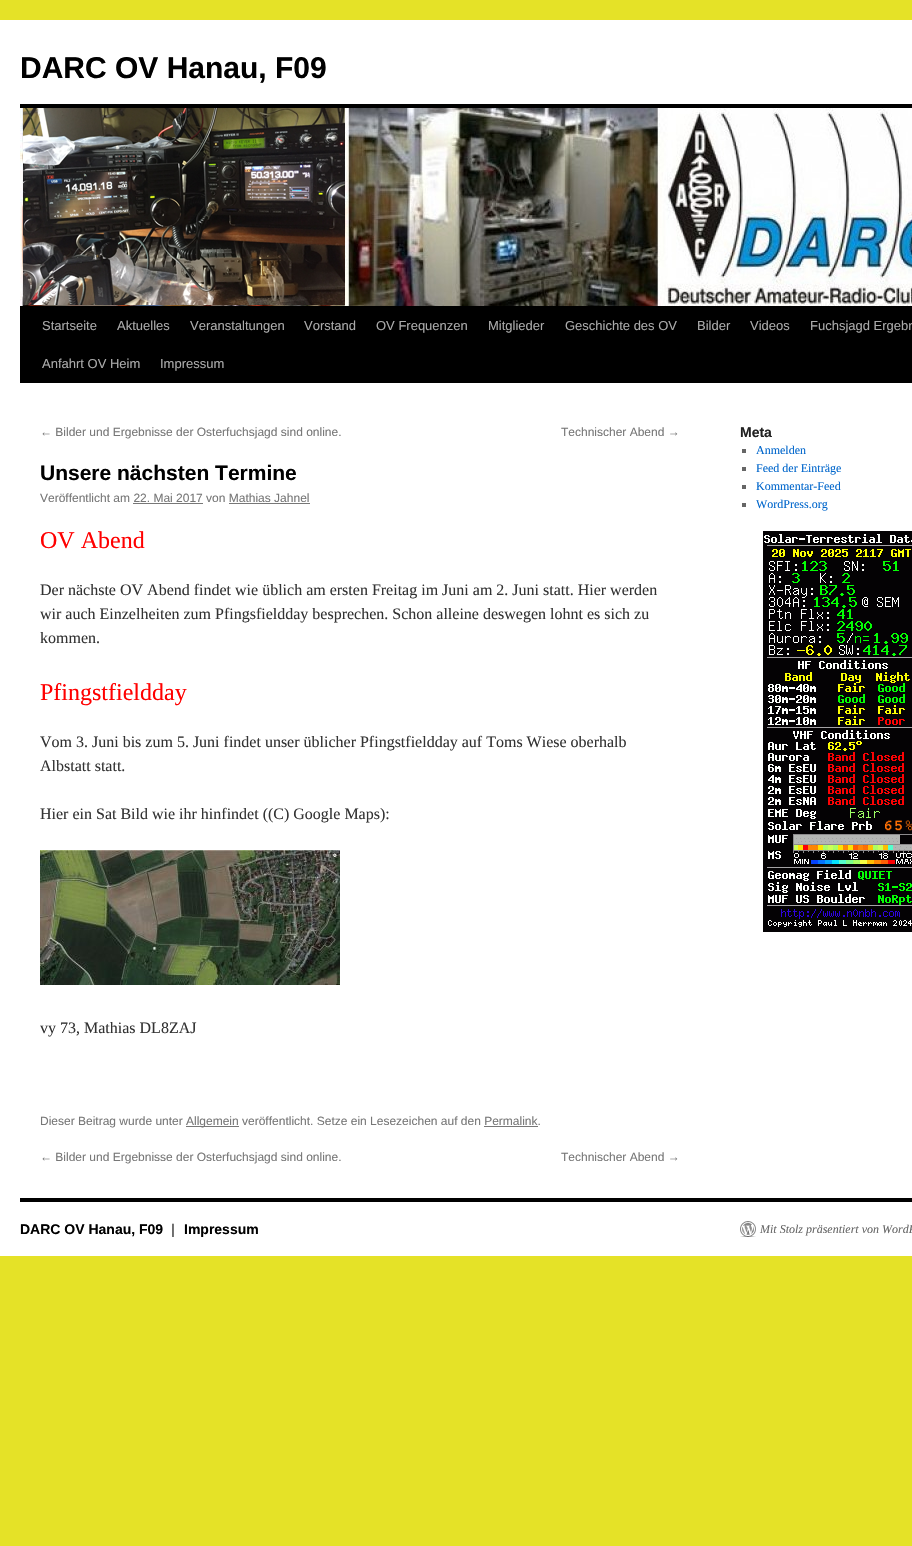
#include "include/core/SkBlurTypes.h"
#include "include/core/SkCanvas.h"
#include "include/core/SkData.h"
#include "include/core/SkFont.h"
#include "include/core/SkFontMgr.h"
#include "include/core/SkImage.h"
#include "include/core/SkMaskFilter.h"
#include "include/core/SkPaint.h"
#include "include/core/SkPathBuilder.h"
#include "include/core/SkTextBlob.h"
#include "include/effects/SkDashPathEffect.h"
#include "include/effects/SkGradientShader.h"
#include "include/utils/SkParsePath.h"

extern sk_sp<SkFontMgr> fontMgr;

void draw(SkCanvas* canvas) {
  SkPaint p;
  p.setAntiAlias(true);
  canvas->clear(SkColorSetRGB(229, 226, 39));
  p.setColor(SK_ColorWHITE);
  canvas->drawRect(SkRect::MakeLTRB(0, 20, 912, 1256), p);
  p.setColor(SK_ColorBLACK);
  canvas->drawRect(SkRect::MakeLTRB(20, 104, 912, 108), p);
  canvas->drawRect(SkRect::MakeLTRB(20, 306, 912, 383), p);
  canvas->drawImageRect(SkImages::DeferredFromEncodedData(SkData::MakeFromFileName("images/1.png")), SkRect::MakeLTRB(20, 108, 912, 306), SkSamplingOptions());
  p.setColor(SkColorSetRGB(119, 119, 119));
  canvas->drawRect(SkRect::MakeLTRB(133, 503, 203, 504), p);
  canvas->drawRect(SkRect::MakeLTRB(229, 503, 310, 504), p);
  canvas->drawImageRect(SkImages::DeferredFromEncodedData(SkData::MakeFromFileName("images/2.png")), SkRect::MakeLTRB(40, 850, 340, 985), SkSamplingOptions());
  canvas->drawRect(SkRect::MakeLTRB(186, 1126, 239, 1127), p);
  canvas->drawRect(SkRect::MakeLTRB(484, 1126, 538, 1127), p);
  p.setColor(SkColorSetRGB(102, 102, 102));
  canvas->drawRect(SkRect::MakeLTRB(742, 449, 746, 453), p);
  canvas->drawRect(SkRect::MakeLTRB(742, 467, 746, 471), p);
  canvas->drawRect(SkRect::MakeLTRB(742, 485, 746, 489), p);
  canvas->drawRect(SkRect::MakeLTRB(742, 503, 746, 507), p);
  canvas->drawImageRect(SkImages::DeferredFromEncodedData(SkData::MakeFromFileName("images/3.png")), SkRect::MakeLTRB(763, 531, 912, 932), SkSamplingOptions());
  p.setColor(SK_ColorBLACK);
  canvas->drawRect(SkRect::MakeLTRB(20, 1198, 912, 1202), p);
  canvas->drawImageRect(SkImages::DeferredFromEncodedData(SkData::MakeFromFileName("images/4.png")), SkRect::MakeLTRB(740, 1221, 756, 1237), SkSamplingOptions());
  SkFont font1(fontMgr->matchFamilyStyle("Liberation Sans", SkFontStyle::Bold()), 30);
  font1.setSubpixel(true);
  canvas->drawString("DARC OV Hanau, F09", 20, 78, font1, p);
  SkFont font2(fontMgr->matchFamilyStyle("Liberation Sans", SkFontStyle::Normal()), 13);
  font2.setSubpixel(true);
  p.setColor(SkColorSetRGB(170, 170, 170));
  canvas->drawString("Startseite", 42, 330, font2, p);
  canvas->drawString("Aktuelles", 117, 330, font2, p);
  canvas->drawString("Veranstaltungen", 190, 330, font2, p);
  canvas->drawString("Vorstand", 304, 330, font2, p);
  canvas->drawString("OV Frequenzen", 376, 330, font2, p);
  canvas->drawString("Mitglieder", 488, 330, font2, p);
  canvas->drawString("Geschichte des OV", 565, 330, font2, p);
  canvas->drawString("Bilder", 697, 330, font2, p);
  canvas->drawString("Videos", 750, 330, font2, p);
  canvas->drawString("Fuchsjagd Ergebn", 810, 330, font2, p);
  canvas->drawString("Anfahrt OV Heim", 42, 368, font2, p);
  canvas->drawString("Impressum", 160, 368, font2, p);
  SkFont font3(fontMgr->matchFamilyStyle("Liberation Sans", SkFontStyle::Normal()), 12);
  font3.setSubpixel(true);
  p.setColor(SkColorSetRGB(119, 119, 119));
  canvas->drawString("← Bilder und Ergebnisse der Osterfuchsjagd sind online.", 40, 436, font3, p);
  canvas->drawString("Technischer Abend →", 561, 436, font3, p);
  SkFont font4(fontMgr->matchFamilyStyle("Liberation Sans", SkFontStyle::Bold()), 21);
  font4.setSubpixel(true);
  p.setColor(SK_ColorBLACK);
  canvas->drawString("Unsere nächsten Termine", 40, 480, font4, p);
  p.setColor(SkColorSetRGB(119, 119, 119));
  canvas->drawString("Veröffentlicht am 22. Mai 2017 von Mathias Jahnel", 40, 502, font3, p);
  SkFont font5(fontMgr->matchFamilyStyle("Liberation Serif", SkFontStyle::Normal()), 24);
  font5.setSubpixel(true);
  p.setColor(SkColorSetRGB(255, 0, 0));
  canvas->drawString("OV Abend", 40, 548, font5, p);
  SkFont font6(fontMgr->matchFamilyStyle("Liberation Serif", SkFontStyle::Normal()), 16);
  font6.setSubpixel(true);
  p.setColor(SkColorSetRGB(51, 51, 51));
  canvas->drawString("Der nächste OV Abend findet wie üblich am ersten Freitag im Juni am 2. Juni statt. Hier werden", 40, 595, font6, p);
  canvas->drawString("wir auch Einzelheiten zum Pfingsfieldday besprechen. Schon alleine deswegen lohnt es sich zu", 40, 619, font6, p);
  canvas->drawString("kommen.", 40, 643, font6, p);
  p.setColor(SkColorSetRGB(255, 0, 0));
  canvas->drawString("Pfingstfieldday", 40, 700, font5, p);
  p.setColor(SkColorSetRGB(51, 51, 51));
  canvas->drawString("Vom 3. Juni bis zum 5. Juni findet unser üblicher Pfingstfieldday auf Toms Wiese oberhalb", 40, 747, font6, p);
  canvas->drawString("Albstatt statt.", 40, 771, font6, p);
  canvas->drawString("Hier ein Sat Bild wie ihr hinfindet ((C) Google Maps):", 40, 819, font6, p);
  canvas->drawString("vy 73, Mathias DL8ZAJ", 40, 1033, font6, p);
  p.setColor(SkColorSetRGB(119, 119, 119));
  canvas->drawString("Dieser Beitrag wurde unter", 40, 1125, font3, p);
  canvas->drawString("Allgemein veröffentlicht. Setze ein Lesezeichen auf den Permalink.", 186, 1125, font3, p);
  canvas->drawString("← Bilder und Ergebnisse der Osterfuchsjagd sind online.", 40, 1161, font3, p);
  canvas->drawString("Technischer Abend →", 561, 1161, font3, p);
  SkFont font7(fontMgr->matchFamilyStyle("Liberation Sans", SkFontStyle::Bold()), 14);
  font7.setSubpixel(true);
  p.setColor(SkColorSetRGB(34, 34, 34));
  canvas->drawString("Meta", 740, 437, font7, p);
  SkFont font8(fontMgr->matchFamilyStyle("Liberation Serif", SkFontStyle::Normal()), 12);
  font8.setSubpixel(true);
  p.setColor(SkColorSetRGB(0, 102, 204));
  canvas->drawString("Anmelden", 756, 454, font8, p);
  canvas->drawString("Feed der Einträge", 756, 472, font8, p);
  canvas->drawString("Kommentar-Feed", 756, 490, font8, p);
  canvas->drawString("WordPress.org", 756, 508, font8, p);
  p.setColor(SK_ColorBLACK);
  canvas->drawString("DARC OV Hanau, F09", 20, 1234, font7, p);
  p.setColor(SkColorSetRGB(102, 102, 102));
  canvas->drawString("|", 171, 1234, font7, p);
  p.setColor(SK_ColorBLACK);
  canvas->drawString("Impressum", 184, 1234, font7, p);
  SkFont font9(fontMgr->matchFamilyStyle("Liberation Serif", SkFontStyle::Italic()), 12);
  font9.setSubpixel(true);
  p.setColor(SkColorSetRGB(102, 102, 102));
  canvas->drawString("Mit Stolz präsentiert von WordP", 760, 1233, font9, p);
}
